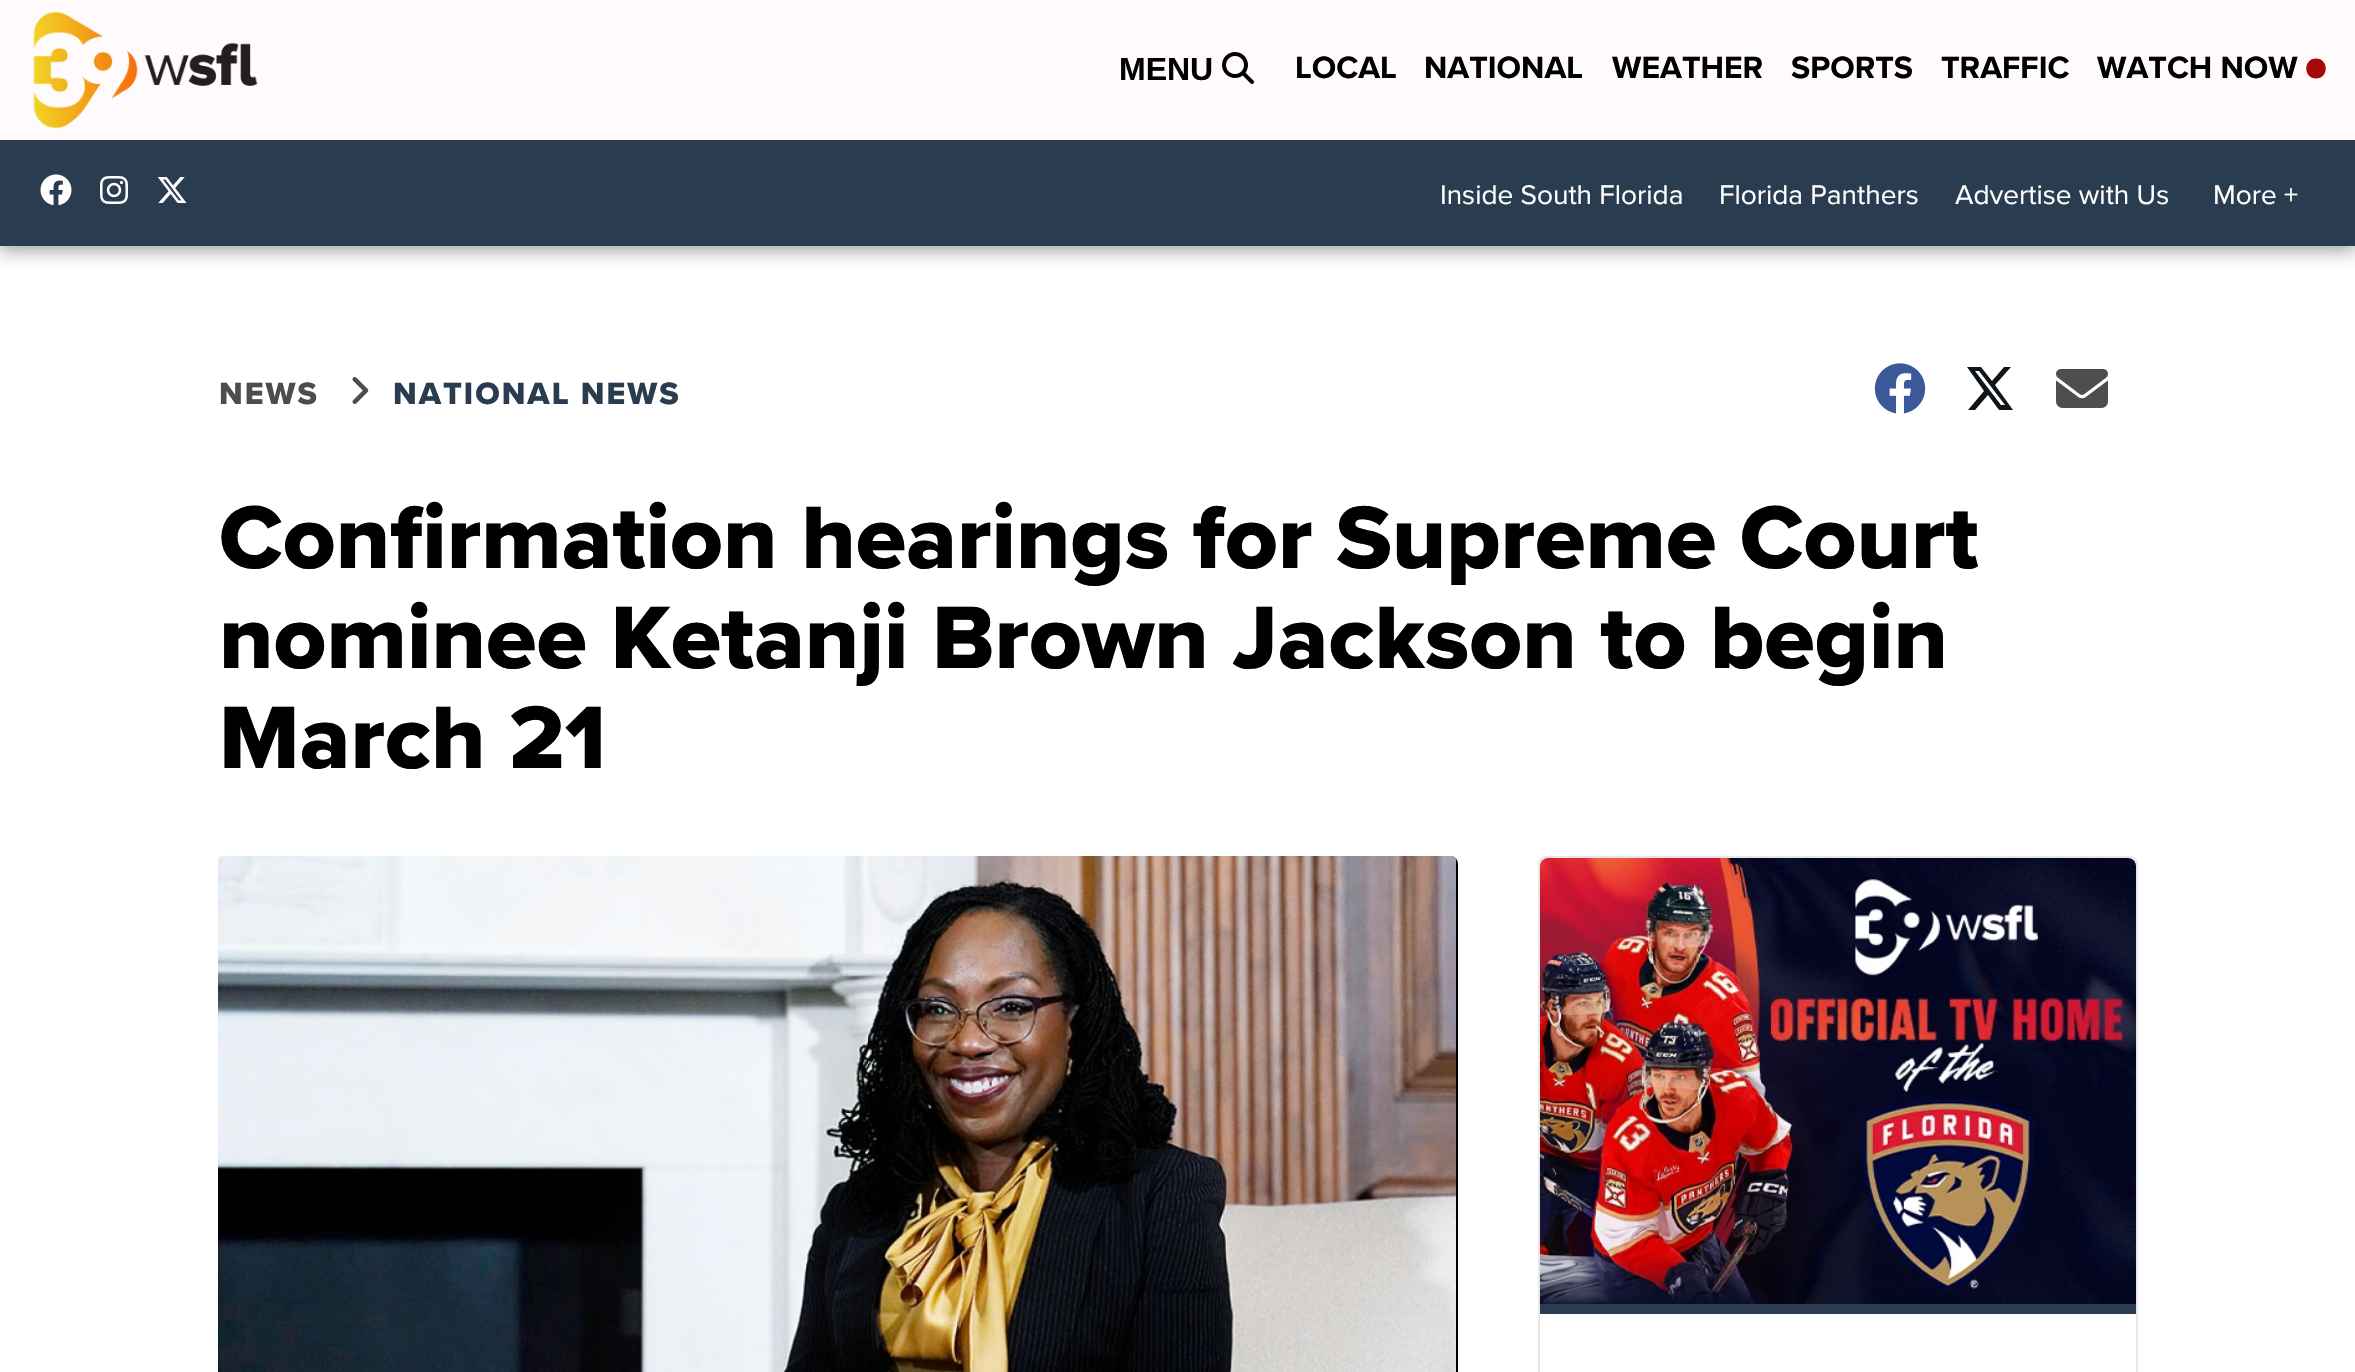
#include "include/core/SkBlurTypes.h"
#include "include/core/SkCanvas.h"
#include "include/core/SkData.h"
#include "include/core/SkFont.h"
#include "include/core/SkFontMgr.h"
#include "include/core/SkImage.h"
#include "include/core/SkMaskFilter.h"
#include "include/core/SkPaint.h"
#include "include/core/SkPathBuilder.h"
#include "include/core/SkTextBlob.h"
#include "include/effects/SkDashPathEffect.h"
#include "include/effects/SkGradientShader.h"
#include "include/utils/SkParsePath.h"

extern sk_sp<SkFontMgr> fontMgr;

void draw(SkCanvas* canvas) {
  SkPaint p;
  p.setAntiAlias(true);
  auto spacedText = [&](const char* s, float x, float y, const SkFont& font, const SkPaint& ink, float letter, float word) {
    std::vector<SkGlyphID> glyphs(font.countText(s, strlen(s), SkTextEncoding::kUTF8));
    std::vector<float> xs(glyphs.size());
    font.textToGlyphs(s, strlen(s), SkTextEncoding::kUTF8, glyphs);
    font.getXPos(glyphs, xs, x);
    float extra = 0;
    for (size_t i = 0; i < glyphs.size(); i++) {
      xs[i] += extra;
      extra += letter + word * (glyphs[i] == font.unicharToGlyph(' '));
    }
    canvas->drawTextBlob(SkTextBlob::MakeFromPosHGlyphs(glyphs, xs, y, font), 0, 0, ink);
  };
  canvas->clear(SK_ColorWHITE);
  p.setColor(SkColorSetARGB(194, 97, 97, 97));
  p.setMaskFilter(SkMaskFilter::MakeBlur(kNormal_SkBlurStyle, 10));
  canvas->drawRect(SkRect::MakeLTRB(-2, -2, 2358, 248), p);
  p.setMaskFilter(nullptr);
  p.setColor(SkColorSetRGB(255, 251, 253));
  canvas->drawRect(SkRect::MakeLTRB(0, 0, 2355, 140), p);
  canvas->drawImageRect(SkImages::DeferredFromEncodedData(SkData::MakeFromFileName("images/1.png")), SkRect::MakeLTRB(33, 11, 258, 129), SkSamplingOptions());
  canvas->drawImageRect(SkImages::DeferredFromEncodedData(SkData::MakeFromFileName("images/2.png")), SkRect::MakeLTRB(1222, 52, 1254, 84), SkSamplingOptions());
  p.setColor(SkColorSetRGB(167, 8, 8));
  canvas->drawPath(SkPathBuilder().moveTo(2316, 78.5f).cubicTo(2329, 78.5f, 2329, 58.5f, 2316, 58.5f).cubicTo(2303, 58.5f, 2303, 78.5f, 2316, 78.5f).close().detach(), p);
  p.setColor(SkColorSetRGB(42, 60, 79));
  canvas->drawRect(SkRect::MakeLTRB(0, 140, 2355, 246), p);
  canvas->drawImageRect(SkImages::DeferredFromEncodedData(SkData::MakeFromFileName("images/3.png")), SkRect::MakeLTRB(40, 174, 72, 206), SkSamplingOptions());
  canvas->drawImageRect(SkImages::DeferredFromEncodedData(SkData::MakeFromFileName("images/4.png")), SkRect::MakeLTRB(100, 176, 128, 204), SkSamplingOptions());
  canvas->drawImageRect(SkImages::DeferredFromEncodedData(SkData::MakeFromFileName("images/5.png")), SkRect::MakeLTRB(157, 177, 187, 203), SkSamplingOptions());
  canvas->drawImageRect(SkImages::DeferredFromEncodedData(SkData::MakeFromFileName("images/6.png")), SkRect::MakeLTRB(352, 377, 369, 404), SkSamplingOptions());
  canvas->drawImageRect(SkImages::DeferredFromEncodedData(SkData::MakeFromFileName("images/7.png")), SkRect::MakeLTRB(1874, 363, 1926, 414), SkSamplingOptions());
  p.setColor(SkColorSetRGB(15, 20, 25));
  canvas->drawPath(SkPathBuilder().moveTo(2004, 367).lineTo(2011, 367).lineTo(1995, 385).lineTo(2013, 410).lineTo(1999, 410).lineTo(1988, 395).lineTo(1975, 410).lineTo(1968, 410).lineTo(1984, 391).lineTo(1967, 367).lineTo(1981, 367).lineTo(1992, 381).close().moveTo(2001, 405).lineTo(2005, 405).lineTo(1979, 371).lineTo(1975, 371).close().detach(), p);
  canvas->drawImageRect(SkImages::DeferredFromEncodedData(SkData::MakeFromFileName("images/8.png")), SkRect::MakeLTRB(2056, 369, 2108, 408), SkSamplingOptions());
  p.setColor(SK_ColorBLACK);
  canvas->drawRoundRect(SkRect::MakeLTRB(218, 856, 1458, 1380), 8, 8, p);
  canvas->drawImageRect(SkImages::DeferredFromEncodedData(SkData::MakeFromFileName("images/9.png")), SkRect::MakeLTRB(218, 856, 1456, 1372), SkSamplingOptions());
  p.setStyle(SkPaint::kStroke_Style);
  p.setStrokeWidth(2);
  p.setColor(SkColorSetRGB(231, 231, 231));
  canvas->drawRoundRect(SkRect::MakeLTRB(1539, 857, 2137, 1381), 7, 7, p);
  canvas->drawImageRect(SkImages::DeferredFromEncodedData(SkData::MakeFromFileName("images/10.png")), SkRect::MakeLTRB(1540, 858, 2136, 1304), SkSamplingOptions());
  p.setStyle(SkPaint::kFill_Style);
  p.setColor(SkColorSetRGB(42, 60, 79));
  canvas->drawRect(SkRect::MakeLTRB(1540, 1304, 2136, 1314), p);
  SkFont font1(fontMgr->matchFamilyStyle("Liberation Sans", SkFontStyle::Bold()), 32);
  font1.setSubpixel(true);
  p.setColor(SK_ColorBLACK);
  canvas->drawString("MENU", 1119, 80, font1, p);
  SkFont font2(fontMgr->matchFamilyStyle("Proxima Nova", SkFontStyle::Bold()), 32);
  font2.setSubpixel(true);
  canvas->drawString("LOCAL", 1295, 78, font2, p);
  canvas->drawString("NATIONAL", 1424, 78, font2, p);
  canvas->drawString("WEATHER", 1612, 78, font2, p);
  canvas->drawString("SPORTS", 1791, 78, font2, p);
  canvas->drawString("TRAFFIC", 1941, 78, font2, p);
  canvas->drawString("WATCH NOW", 2097, 78, font2, p);
  SkFont font3(fontMgr->matchFamilyStyle("Proxima Nova", SkFontStyle::Normal()), 28);
  font3.setSubpixel(true);
  p.setColor(SK_ColorWHITE);
  canvas->drawString("Inside South Florida", 1440, 204, font3, p);
  canvas->drawString("Florida Panthers", 1719, 204, font3, p);
  canvas->drawString("Advertise with Us", 1955, 204, font3, p);
  canvas->drawString("More +", 2213, 204, font3, p);
  SkFont font4(fontMgr->matchFamilyStyle("Proxima Nova", SkFontStyle(800, SkFontStyle::kNormal_Width, SkFontStyle::kUpright_Slant)), 32);
  font4.setSubpixel(true);
  p.setColor(SkColorSetRGB(77, 77, 77));
  spacedText("NEWS", 219, 404, font4, p, 2, 0);
  p.setColor(SkColorSetRGB(42, 60, 79));
  spacedText("NATIONAL NEWS", 393, 404, font4, p, 2, 0);
  SkFont font5(fontMgr->matchFamilyStyle("Proxima Nova", SkFontStyle(800, SkFontStyle::kNormal_Width, SkFontStyle::kUpright_Slant)), 92);
  font5.setSubpixel(true);
  p.setColor(SK_ColorBLACK);
  canvas->drawString("Confirmation hearings for Supreme Court", 219, 568, font5, p);
  canvas->drawString("nominee Ketanji Brown Jackson to begin", 219, 668, font5, p);
  canvas->drawString("March 21", 219, 768, font5, p);
}
